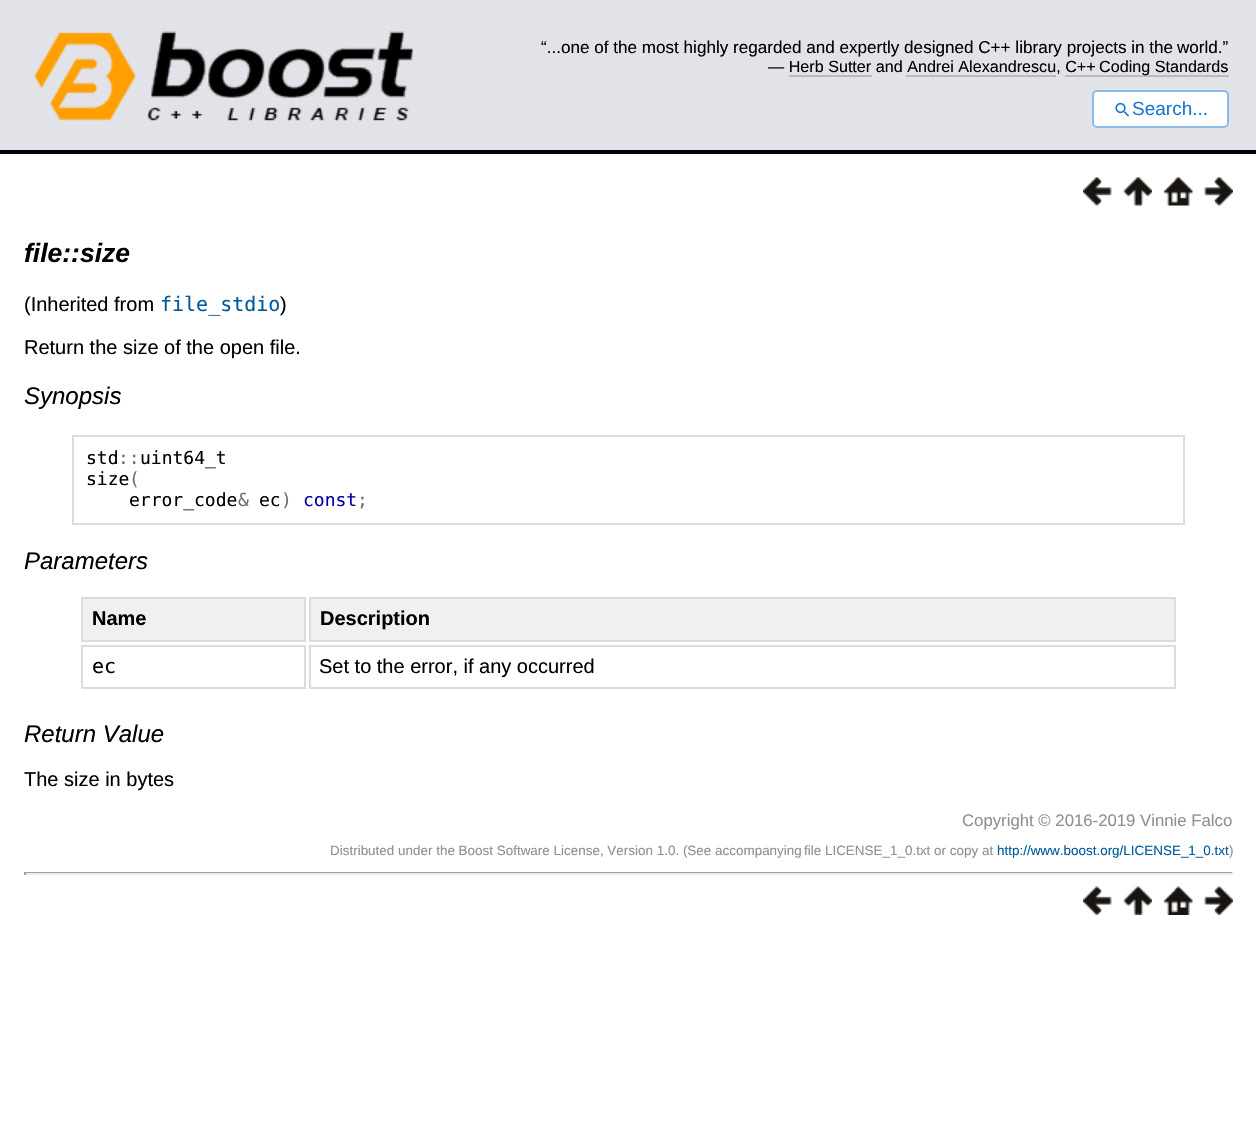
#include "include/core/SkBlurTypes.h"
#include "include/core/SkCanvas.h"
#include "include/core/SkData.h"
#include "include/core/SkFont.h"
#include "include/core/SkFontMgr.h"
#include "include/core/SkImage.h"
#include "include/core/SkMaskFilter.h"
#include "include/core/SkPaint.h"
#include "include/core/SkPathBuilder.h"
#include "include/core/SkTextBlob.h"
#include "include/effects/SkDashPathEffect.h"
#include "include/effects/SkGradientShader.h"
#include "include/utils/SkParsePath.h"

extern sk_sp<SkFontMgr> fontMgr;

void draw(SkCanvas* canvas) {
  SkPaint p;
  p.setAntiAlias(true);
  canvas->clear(SK_ColorWHITE);
  p.setColor(SkColorSetRGB(225, 227, 232));
  canvas->drawRect(SkRect::MakeLTRB(0, 0, 1256, 150), p);
  p.setColor(SK_ColorBLACK);
  canvas->drawRect(SkRect::MakeLTRB(0, 150, 1256, 154), p);
  canvas->drawImageRect(SkImages::DeferredFromEncodedData(SkData::MakeFromFileName("images/1.png")), SkRect::MakeLTRB(34, 31, 413, 121), SkSamplingOptions());
  p.setColor(SkColorSetRGB(187, 187, 187));
  canvas->drawRect(SkRect::MakeLTRB(1065, 75, 1229, 77), p);
  canvas->drawRect(SkRect::MakeLTRB(789, 75, 872, 77), p);
  canvas->drawRect(SkRect::MakeLTRB(906, 75, 1056, 77), p);
  p.setColor(SK_ColorWHITE);
  canvas->drawRoundRect(SkRect::MakeLTRB(1092, 90, 1229, 128), 5, 5, p);
  p.setStyle(SkPaint::kStroke_Style);
  p.setStrokeWidth(2);
  p.setColor(SkColorSetARGB(128, 25, 118, 210));
  canvas->drawRoundRect(SkRect::MakeLTRB(1093, 91, 1228, 127), 4, 4, p);
  canvas->drawImageRect(SkImages::DeferredFromEncodedData(SkData::MakeFromFileName("images/2.png")), SkRect::MakeLTRB(1115, 102, 1130, 117), SkSamplingOptions());
  canvas->drawImageRect(SkImages::DeferredFromEncodedData(SkData::MakeFromFileName("images/3.png")), SkRect::MakeLTRB(1083, 177, 1112, 206), SkSamplingOptions());
  canvas->drawImageRect(SkImages::DeferredFromEncodedData(SkData::MakeFromFileName("images/4.png")), SkRect::MakeLTRB(1123, 177, 1152, 206), SkSamplingOptions());
  canvas->drawImageRect(SkImages::DeferredFromEncodedData(SkData::MakeFromFileName("images/5.png")), SkRect::MakeLTRB(1164, 177, 1193, 206), SkSamplingOptions());
  canvas->drawImageRect(SkImages::DeferredFromEncodedData(SkData::MakeFromFileName("images/6.png")), SkRect::MakeLTRB(1204, 177, 1233, 206), SkSamplingOptions());
  p.setColor(SkColorSetRGB(220, 220, 220));
  canvas->drawRect(SkRect::MakeLTRB(73, 436, 1184, 524), p);
  p.setStyle(SkPaint::kFill_Style);
  p.setColor(SkColorSetRGB(240, 240, 240));
  canvas->drawRect(SkRect::MakeLTRB(82, 598, 305, 641), p);
  p.setStyle(SkPaint::kStroke_Style);
  p.setColor(SkColorSetRGB(220, 220, 220));
  canvas->drawRect(SkRect::MakeLTRB(82, 598, 305, 641), p);
  p.setStyle(SkPaint::kFill_Style);
  p.setColor(SkColorSetRGB(240, 240, 240));
  canvas->drawRect(SkRect::MakeLTRB(310, 598, 1175, 641), p);
  p.setStyle(SkPaint::kStroke_Style);
  p.setColor(SkColorSetRGB(220, 220, 220));
  canvas->drawRect(SkRect::MakeLTRB(310, 598, 1175, 641), p);
  canvas->drawRect(SkRect::MakeLTRB(82, 646, 305, 688), p);
  canvas->drawRect(SkRect::MakeLTRB(310, 646, 1175, 688), p);
  p.setStyle(SkPaint::kFill_Style);
  p.setColor(SkColorSetRGB(159, 159, 159));
  canvas->drawRect(SkRect::MakeLTRB(24, 872, 1233, 873), p);
  p.setColor(SkColorSetRGB(238, 238, 238));
  canvas->drawRect(SkRect::MakeLTRB(1232, 872, 1234, 875), p);
  canvas->drawRect(SkRect::MakeLTRB(24, 873, 1233, 875), p);
  p.setColor(SkColorSetRGB(159, 159, 159));
  canvas->drawRect(SkRect::MakeLTRB(24, 872, 26, 875), p);
  canvas->drawImageRect(SkImages::DeferredFromEncodedData(SkData::MakeFromFileName("images/7.png")), SkRect::MakeLTRB(1083, 886, 1112, 915), SkSamplingOptions());
  canvas->drawImageRect(SkImages::DeferredFromEncodedData(SkData::MakeFromFileName("images/8.png")), SkRect::MakeLTRB(1123, 886, 1152, 915), SkSamplingOptions());
  canvas->drawImageRect(SkImages::DeferredFromEncodedData(SkData::MakeFromFileName("images/9.png")), SkRect::MakeLTRB(1164, 886, 1193, 915), SkSamplingOptions());
  canvas->drawImageRect(SkImages::DeferredFromEncodedData(SkData::MakeFromFileName("images/10.png")), SkRect::MakeLTRB(1204, 886, 1233, 915), SkSamplingOptions());
  SkFont font1(fontMgr->matchFamilyStyle("Liberation Sans", SkFontStyle::Normal()), 17.1f);
  font1.setSubpixel(true);
  p.setColor(SK_ColorBLACK);
  canvas->drawString("“...one of the most highly regarded and expertly designed C++ library projects in the", 541, 53, font1, p);
  canvas->drawString("world.”", 1177, 53, font1, p);
  SkFont font2(fontMgr->matchFamilyStyle("Liberation Sans", SkFontStyle::Normal()), 16.15f);
  font2.setSubpixel(true);
  canvas->drawString("— Herb Sutter and Andrei Alexandrescu, C++", 768, 72, font2, p);
  canvas->drawString("Coding Standards", 1099, 72, font2, p);
  SkFont font3(fontMgr->matchFamilyStyle("Liberation Sans", SkFontStyle::Normal()), 19);
  font3.setSubpixel(true);
  p.setColor(SkColorSetRGB(25, 118, 210));
  canvas->drawString("Search...", 1132, 115, font3, p);
  SkFont font4(fontMgr->matchFamilyStyle("Liberation Sans", SkFontStyle::BoldItalic()), 26.5f);
  font4.setSubpixel(true);
  p.setColor(SK_ColorBLACK);
  canvas->drawString("file::size", 24, 262, font4, p);
  SkFont font5(fontMgr->matchFamilyStyle("Liberation Sans", SkFontStyle::Normal()), 20);
  font5.setSubpixel(true);
  canvas->drawString("(Inherited from", 24, 311, font5, p);
  SkFont font6(fontMgr->matchFamilyStyle("DejaVu Sans Mono", SkFontStyle::Normal()), 20);
  font6.setSubpixel(true);
  p.setColor(SkColorSetRGB(0, 90, 156));
  canvas->drawString("file_stdio", 160, 311, font6, p);
  p.setColor(SK_ColorBLACK);
  canvas->drawString(")", 280, 311, font5, p);
  canvas->drawString("Return the size of the open file.", 24, 354, font5, p);
  SkFont font7(fontMgr->matchFamilyStyle("Liberation Sans", SkFontStyle::Italic()), 24);
  font7.setSubpixel(true);
  canvas->drawString("Synopsis", 24, 404, font7, p);
  SkFont font8(fontMgr->matchFamilyStyle("DejaVu Sans Mono", SkFontStyle::Normal()), 18);
  font8.setSubpixel(true);
  canvas->drawString("std", 86, 464, font8, p);
  p.setColor(SkColorSetRGB(112, 112, 112));
  canvas->drawString("::", 118, 464, font8, p);
  p.setColor(SK_ColorBLACK);
  canvas->drawString("uint64_t", 140, 464, font8, p);
  canvas->drawString("size", 86, 485, font8, p);
  p.setColor(SkColorSetRGB(112, 112, 112));
  canvas->drawString("(", 129, 485, font8, p);
  p.setColor(SK_ColorBLACK);
  canvas->drawString("error_code", 129, 506, font8, p);
  p.setColor(SkColorSetRGB(112, 112, 112));
  canvas->drawString("&", 238, 506, font8, p);
  p.setColor(SK_ColorBLACK);
  canvas->drawString("ec", 259, 506, font8, p);
  p.setColor(SkColorSetRGB(112, 112, 112));
  canvas->drawString(")", 281, 506, font8, p);
  p.setColor(SkColorSetRGB(0, 0, 170));
  canvas->drawString("const", 303, 506, font8, p);
  p.setColor(SkColorSetRGB(112, 112, 112));
  canvas->drawString(";", 357, 506, font8, p);
  p.setColor(SK_ColorBLACK);
  canvas->drawString("Parameters", 24, 569, font7, p);
  SkFont font9(fontMgr->matchFamilyStyle("Liberation Sans", SkFontStyle::Bold()), 20);
  font9.setSubpixel(true);
  canvas->drawString("Name", 92, 625, font9, p);
  canvas->drawString("Description", 320, 625, font9, p);
  canvas->drawString("ec", 92, 673, font6, p);
  canvas->drawString("Set to the error, if any occurred", 319, 673, font5, p);
  canvas->drawString("Return Value", 24, 742, font7, p);
  canvas->drawString("The size in bytes", 24, 786, font5, p);
  SkFont font10(fontMgr->matchFamilyStyle("Liberation Sans", SkFontStyle::Normal()), 16.75f);
  font10.setSubpixel(true);
  p.setColor(SkColorSetRGB(143, 143, 143));
  canvas->drawString("Copyright © 2016-2019 Vinnie Falco", 962, 826, font10, p);
  SkFont font11(fontMgr->matchFamilyStyle("Liberation Sans", SkFontStyle::Normal()), 13.45f);
  font11.setSubpixel(true);
  canvas->drawString("Distributed under the Boost Software License, Version 1.0. (See accompanying", 330, 855, font11, p);
  canvas->drawString("file LICENSE_1_0.txt or copy at", 804, 855, font11, p);
  p.setColor(SkColorSetRGB(0, 90, 156));
  canvas->drawString("http://www.boost.org/LICENSE_1_0.txt", 997, 855, font11, p);
  p.setColor(SkColorSetRGB(143, 143, 143));
  canvas->drawString(")", 1229, 855, font11, p);
}
